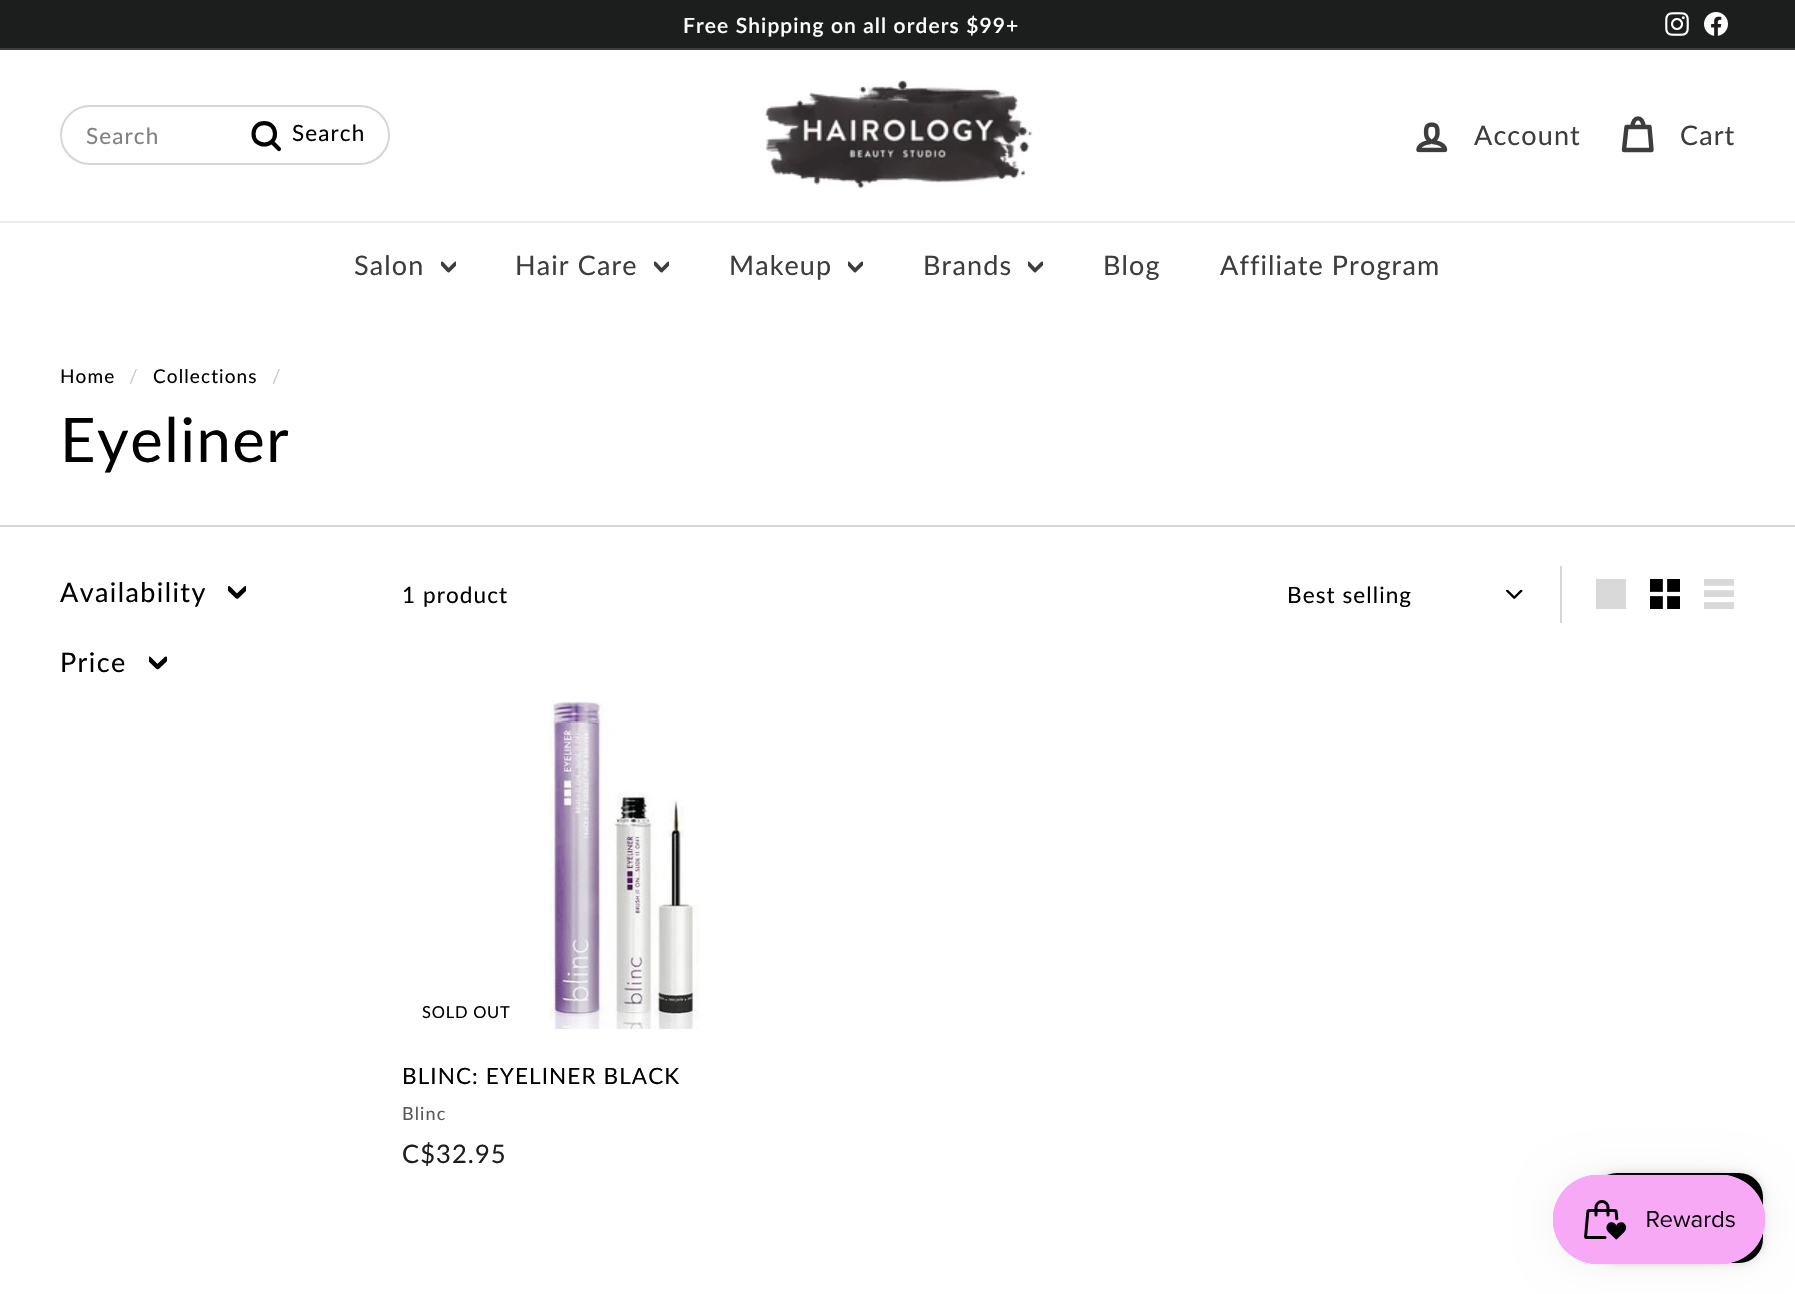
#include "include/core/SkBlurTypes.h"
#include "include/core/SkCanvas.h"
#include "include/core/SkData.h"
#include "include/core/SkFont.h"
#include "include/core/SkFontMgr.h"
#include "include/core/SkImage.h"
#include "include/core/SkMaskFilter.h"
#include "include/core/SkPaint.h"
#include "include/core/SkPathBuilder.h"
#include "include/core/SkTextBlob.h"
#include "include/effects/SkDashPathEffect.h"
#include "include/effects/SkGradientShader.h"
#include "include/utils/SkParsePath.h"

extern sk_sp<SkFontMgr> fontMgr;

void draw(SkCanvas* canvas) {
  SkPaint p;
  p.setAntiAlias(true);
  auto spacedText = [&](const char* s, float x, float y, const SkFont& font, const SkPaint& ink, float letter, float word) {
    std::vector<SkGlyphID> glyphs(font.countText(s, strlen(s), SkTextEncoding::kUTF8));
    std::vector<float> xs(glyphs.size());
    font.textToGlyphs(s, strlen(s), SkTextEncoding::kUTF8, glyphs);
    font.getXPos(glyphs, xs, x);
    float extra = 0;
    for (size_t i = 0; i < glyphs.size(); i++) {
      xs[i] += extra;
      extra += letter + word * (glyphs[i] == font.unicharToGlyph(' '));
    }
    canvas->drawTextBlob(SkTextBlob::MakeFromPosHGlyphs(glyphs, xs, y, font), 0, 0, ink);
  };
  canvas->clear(SK_ColorWHITE);
  p.setColor(SkColorSetRGB(28, 29, 29));
  canvas->drawRect(SkRect::MakeLTRB(0, 0, 1795, 48), p);
  canvas->drawImageRect(SkImages::DeferredFromEncodedData(SkData::MakeFromFileName("images/1.png")), SkRect::MakeLTRB(1665, 12, 1689, 36), SkSamplingOptions());
  canvas->drawImageRect(SkImages::DeferredFromEncodedData(SkData::MakeFromFileName("images/2.png")), SkRect::MakeLTRB(1704, 12, 1728, 36), SkSamplingOptions());
  p.setColor(SkColorSetRGB(62, 63, 63));
  canvas->drawRect(SkRect::MakeLTRB(0, 48, 1795, 50), p);
  p.setStyle(SkPaint::kStroke_Style);
  p.setStrokeWidth(2);
  p.setColor(SkColorSetRGB(214, 214, 214));
  canvas->drawRoundRect(SkRect::MakeLTRB(61, 106, 389, 164), 29, 29, p);
  p.setStrokeWidth(4.1f);
  p.setStrokeCap(SkPaint::kRound_Cap);
  p.setStrokeJoin(SkPaint::kRound_Join);
  p.setColor(SK_ColorBLACK);
  canvas->drawPath(SkPathBuilder().moveTo(275, 134).cubicTo(275, 148, 253.5f, 148, 253.5f, 134).cubicTo(253.5f, 119.5f, 275, 119.5f, 275, 134).close().moveTo(279, 149).lineTo(272, 142).detach(), p);
  canvas->drawImageRect(SkImages::DeferredFromEncodedData(SkData::MakeFromFileName("images/3.png")), SkRect::MakeLTRB(765, 80, 1033, 189), SkSamplingOptions());
  canvas->drawImageRect(SkImages::DeferredFromEncodedData(SkData::MakeFromFileName("images/4.png")), SkRect::MakeLTRB(1416, 122, 1448, 153), SkSamplingOptions());
  p.setStrokeWidth(4.4f);
  p.setColor(SkColorSetRGB(61, 61, 61));
  canvas->drawPath(SkPathBuilder().moveTo(1632.5f, 127).cubicTo(1632.5f, 115.5f, 1643.5f, 115.5f, 1643.5f, 127).moveTo(1626.5f, 127).lineTo(1649.5f, 127).lineTo(1651.5f, 150).lineTo(1624, 150).close().detach(), p);
  p.setStyle(SkPaint::kFill_Style);
  p.setColor(SkColorSetRGB(236, 236, 236));
  canvas->drawRect(SkRect::MakeLTRB(0, 221, 1795, 223), p);
  canvas->save();
  canvas->clipRect(SkRect::MakeLTRB(441, 260, 456, 275));
  p.setStyle(SkPaint::kStroke_Style);
  p.setStrokeWidth(3.8f);
  p.setColor(SkColorSetRGB(61, 61, 61));
  canvas->drawPath(SkPathBuilder().moveTo(442, 263.5f).lineTo(448.5f, 270.5f).lineTo(455.5f, 263.5f).detach(), p);
  canvas->restore();
  canvas->save();
  canvas->clipRect(SkRect::MakeLTRB(654, 260, 669, 275));
  canvas->drawPath(SkPathBuilder().moveTo(655, 263.5f).lineTo(661.5f, 270.5f).lineTo(668.5f, 263.5f).detach(), p);
  canvas->restore();
  canvas->save();
  canvas->clipRect(SkRect::MakeLTRB(848, 260, 863, 275));
  canvas->drawPath(SkPathBuilder().moveTo(848.5f, 263.5f).lineTo(855, 270.5f).lineTo(862, 263.5f).detach(), p);
  canvas->restore();
  canvas->save();
  canvas->clipRect(SkRect::MakeLTRB(1028, 260, 1043, 275));
  canvas->drawPath(SkPathBuilder().moveTo(1028.5f, 263.5f).lineTo(1035, 270.5f).lineTo(1042, 263.5f).detach(), p);
  canvas->restore();
  p.setStyle(SkPaint::kFill_Style);
  p.setColor(SkColorSetRGB(214, 214, 214));
  canvas->drawRect(SkRect::MakeLTRB(0, 525, 1795, 527), p);
  canvas->save();
  canvas->clipRect(SkRect::MakeLTRB(228, 584, 246, 602));
  p.setStyle(SkPaint::kStroke_Style);
  p.setStrokeWidth(4.5f);
  p.setColor(SK_ColorBLACK);
  canvas->drawPath(SkPathBuilder().moveTo(229, 588.5f).lineTo(237, 596.5f).lineTo(245.5f, 588.5f).detach(), p);
  canvas->restore();
  canvas->save();
  canvas->clipRect(SkRect::MakeLTRB(149, 654, 167, 672));
  canvas->drawPath(SkPathBuilder().moveTo(149.5f, 659).lineTo(157.5f, 667).lineTo(166, 659).detach(), p);
  canvas->restore();
  p.setStyle(SkPaint::kFill_Style);
  p.setColor(SkColorSetRGB(214, 214, 214));
  canvas->drawRect(SkRect::MakeLTRB(1560, 566, 1562, 623), p);
  canvas->drawImageRect(SkImages::DeferredFromEncodedData(SkData::MakeFromFileName("images/5.png")), SkRect::MakeLTRB(1506, 590, 1523, 599), SkSamplingOptions());
  p.setColor(SkColorSetRGB(217, 217, 217));
  canvas->drawRect(SkRect::MakeLTRB(1596, 579, 1626, 609), p);
  canvas->drawImageRect(SkImages::DeferredFromEncodedData(SkData::MakeFromFileName("images/6.png")), SkRect::MakeLTRB(1650, 579, 1680, 609), SkSamplingOptions());
  canvas->drawImageRect(SkImages::DeferredFromEncodedData(SkData::MakeFromFileName("images/7.png")), SkRect::MakeLTRB(1704, 579, 1734, 609), SkSamplingOptions());
  canvas->drawImageRect(SkImages::DeferredFromEncodedData(SkData::MakeFromFileName("images/8.png")), SkRect::MakeLTRB(549, 701, 700, 1029), SkSamplingOptions());
  p.setColor(SkColorSetARGB(38, 0, 0, 0));
  p.setMaskFilter(SkMaskFilter::MakeBlur(kNormal_SkBlurStyle, 4));
  canvas->drawRoundRect(SkRect::MakeLTRB(1593, 1173, 1763, 1263), 24, 24, p);
  p.setMaskFilter(nullptr);
  p.setColor(SK_ColorBLACK);
  canvas->drawRoundRect(SkRect::MakeLTRB(1593, 1173, 1763, 1263), 24, 24, p);
  p.setColor(SkColorSetARGB(13, 0, 0, 0));
  p.setMaskFilter(SkMaskFilter::MakeBlur(kNormal_SkBlurStyle, 19));
  canvas->drawRoundRect(SkRect::MakeLTRB(1553, 1175, 1766, 1265), 45, 45, p);
  p.setMaskFilter(nullptr);
  canvas->drawImageRect(SkImages::DeferredFromEncodedData(SkData::MakeFromFileName("images/9.png")), SkRect::MakeLTRB(1552, 1174, 1766, 1265), SkSamplingOptions());
  SkFont font1(fontMgr->matchFamilyStyle("Lato", SkFontStyle(600, SkFontStyle::kNormal_Width, SkFontStyle::kUpright_Slant)), 21);
  font1.setSubpixel(true);
  p.setColor(SK_ColorWHITE);
  spacedText("Free Shipping on all orders $99+", 683, 33, font1, p, 1.1f, 0);
  SkFont font2(fontMgr->matchFamilyStyle("Lato", SkFontStyle::Normal()), 22.5f);
  font2.setSubpixel(true);
  p.setColor(SkColorSetRGB(128, 128, 128));
  spacedText("Search", 86, 144, font2, p, 1.1f, 0);
  p.setColor(SK_ColorBLACK);
  spacedText("Search", 292, 141, font2, p, 1.1f, 0);
  SkFont font3(fontMgr->matchFamilyStyle("Lato", SkFontStyle::Normal()), 27);
  font3.setSubpixel(true);
  p.setColor(SkColorSetRGB(61, 61, 61));
  spacedText("Account", 1474, 145, font3, p, 1.1f, 0);
  spacedText("Cart", 1680, 145, font3, p, 1.1f, 0);
  spacedText("Salon", 354, 275, font3, p, 1.1f, 0);
  spacedText("Hair Care", 515, 275, font3, p, 1.1f, 0);
  spacedText("Makeup", 729, 275, font3, p, 1.1f, 0);
  spacedText("Brands", 923, 275, font3, p, 1.1f, 0);
  spacedText("Blog", 1103, 275, font3, p, 1.1f, 0);
  spacedText("Affiliate Program", 1220, 275, font3, p, 1.1f, 0);
  SkFont font4(fontMgr->matchFamilyStyle("Lato", SkFontStyle::Normal()), 19);
  font4.setSubpixel(true);
  p.setColor(SK_ColorBLACK);
  spacedText("Home", 60, 383, font4, p, 1.1f, 0);
  p.setColor(SkColorSetRGB(204, 204, 204));
  spacedText("/", 129, 383, font4, p, 1.1f, 0);
  p.setColor(SK_ColorBLACK);
  spacedText("Collections", 153, 383, font4, p, 1.1f, 0);
  p.setColor(SkColorSetRGB(204, 204, 204));
  spacedText("/", 272, 383, font4, p, 1.1f, 0);
  SkFont font5(fontMgr->matchFamilyStyle("Lato", SkFontStyle::Normal()), 61.5f);
  font5.setSubpixel(true);
  p.setColor(SK_ColorBLACK);
  spacedText("Eyeliner", 60, 462, font5, p, 1.5f, 0);
  spacedText("Availability", 60, 602, font3, p, 1.4f, 0);
  spacedText("Price", 60, 672, font3, p, 1.4f, 0);
  spacedText("1 product", 402, 603, font2, p, 1.1f, 0);
  spacedText("Best selling", 1287, 603, font2, p, 1.1f, 0);
  SkFont font6(fontMgr->matchFamilyStyle("Lato", SkFontStyle::Normal()), 16.5f);
  font6.setSubpixel(true);
  spacedText("SOLD OUT", 422, 1018, font6, p, 0.75f, 0);
  spacedText("BLINC: EYELINER BLACK", 402, 1084, font2, p, 1.1f, 0);
  SkFont font7(fontMgr->matchFamilyStyle("Lato", SkFontStyle::Normal()), 18);
  font7.setSubpixel(true);
  p.setColor(SkColorSetRGB(89, 89, 89));
  spacedText("Blinc", 402, 1120, font7, p, 1.1f, 0);
  SkFont font8(fontMgr->matchFamilyStyle("Lato", SkFontStyle::Normal()), 25.5f);
  font8.setSubpixel(true);
  p.setColor(SkColorSetRGB(28, 29, 29));
  spacedText("C$32.95", 402, 1163, font8, p, 1.1f, 0);
}
